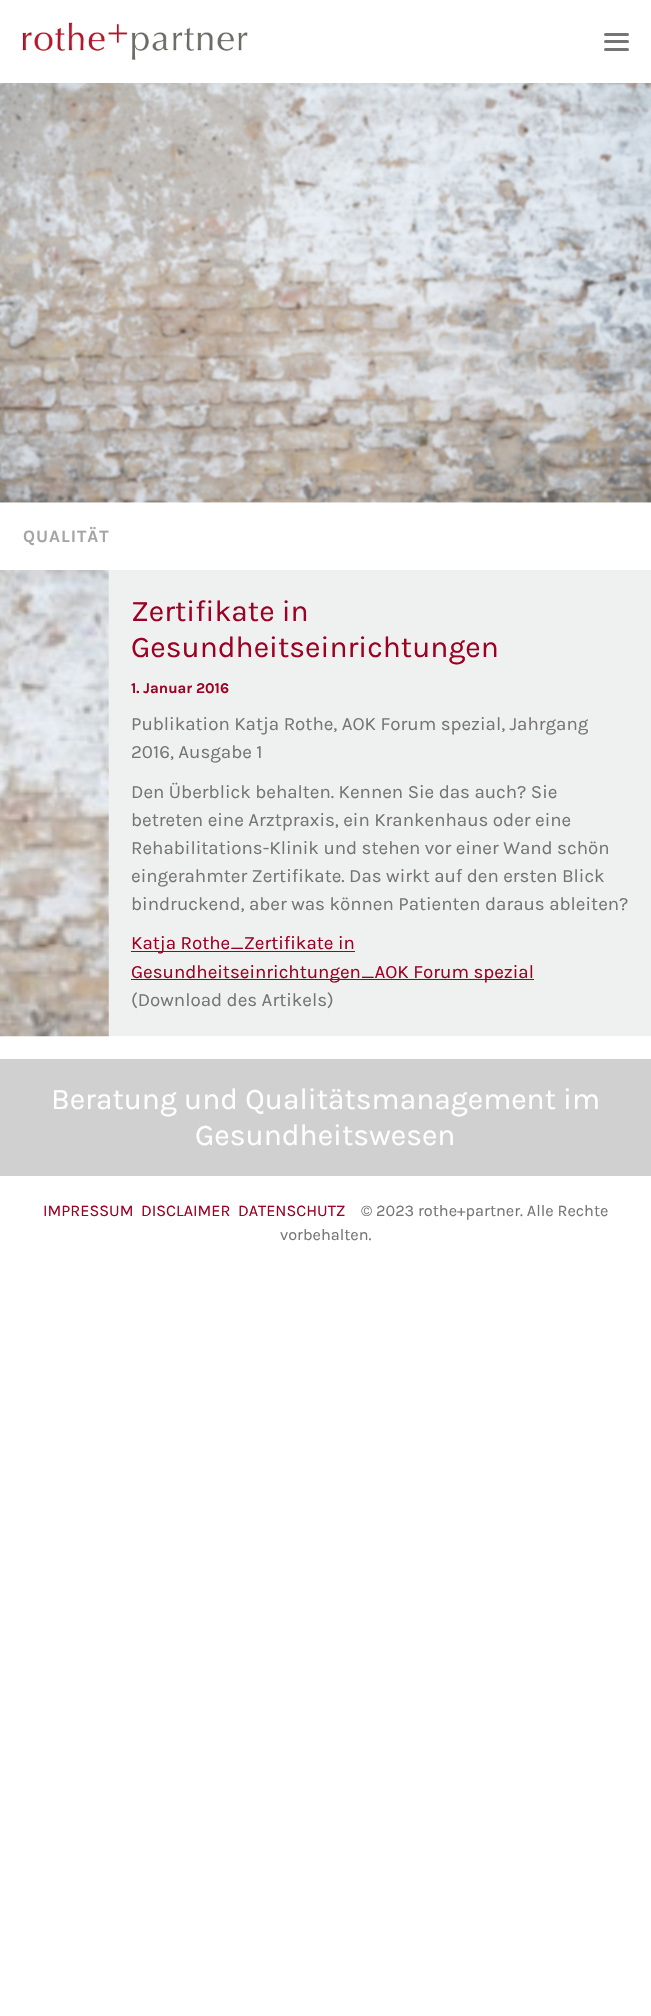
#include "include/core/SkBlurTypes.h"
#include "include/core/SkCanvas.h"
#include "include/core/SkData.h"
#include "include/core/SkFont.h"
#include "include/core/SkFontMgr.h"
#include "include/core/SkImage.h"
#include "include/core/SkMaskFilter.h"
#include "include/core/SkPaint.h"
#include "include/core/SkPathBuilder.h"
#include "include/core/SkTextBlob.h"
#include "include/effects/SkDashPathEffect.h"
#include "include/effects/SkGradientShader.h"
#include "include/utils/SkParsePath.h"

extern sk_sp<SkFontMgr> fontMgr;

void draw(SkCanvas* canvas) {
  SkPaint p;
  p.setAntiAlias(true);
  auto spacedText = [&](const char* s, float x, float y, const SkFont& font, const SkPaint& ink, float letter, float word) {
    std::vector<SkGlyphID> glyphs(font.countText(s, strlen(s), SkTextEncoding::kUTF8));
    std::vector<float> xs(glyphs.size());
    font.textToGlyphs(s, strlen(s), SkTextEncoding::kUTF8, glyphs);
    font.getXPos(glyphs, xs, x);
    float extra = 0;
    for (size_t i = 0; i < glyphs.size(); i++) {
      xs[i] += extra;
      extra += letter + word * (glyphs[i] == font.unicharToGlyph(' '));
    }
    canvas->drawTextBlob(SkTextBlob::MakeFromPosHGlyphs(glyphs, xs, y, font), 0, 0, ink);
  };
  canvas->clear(SK_ColorWHITE);
  canvas->drawImageRect(SkImages::DeferredFromEncodedData(SkData::MakeFromFileName("images/1.png")), SkRect::MakeLTRB(22, 22, 248, 60), SkSamplingOptions());
  p.setColor(SkColorSetRGB(117, 117, 117));
  canvas->drawRoundRect(SkRect::MakeLTRB(604, 40, 629, 43), 1.5f, 1.5f, p);
  canvas->drawRoundRect(SkRect::MakeLTRB(604, 33, 629, 36), 1.5f, 1.5f, p);
  canvas->drawRoundRect(SkRect::MakeLTRB(604, 48, 629, 51), 1.5f, 1.5f, p);
  canvas->drawImageRect(SkImages::DeferredFromEncodedData(SkData::MakeFromFileName("images/2.png")), SkRect::MakeLTRB(0, 83, 651, 503), SkSamplingOptions());
  p.setColor(SkColorSetRGB(239, 241, 240));
  canvas->drawRect(SkRect::MakeLTRB(108, 570, 651, 1036), p);
  canvas->drawImageRect(SkImages::DeferredFromEncodedData(SkData::MakeFromFileName("images/3.png")), SkRect::MakeLTRB(0, 570, 109, 1037), SkSamplingOptions());
  p.setColor(SkColorSetRGB(157, 0, 34));
  canvas->drawRect(SkRect::MakeLTRB(131, 951, 355, 952), p);
  canvas->drawRect(SkRect::MakeLTRB(131, 979, 534, 980), p);
  p.setColor(SkColorSetRGB(208, 208, 208));
  canvas->drawRect(SkRect::MakeLTRB(0, 1059, 651, 1176), p);
  SkFont font1(fontMgr->matchFamilyStyle("Karla", SkFontStyle::Bold()), 17.5f);
  font1.setSubpixel(true);
  p.setColor(SkColorSetRGB(165, 165, 165));
  spacedText("QUALITÄT", 23, 542, font1, p, 1, 0);
  SkFont font2(fontMgr->matchFamilyStyle("Karla", SkFontStyle::Normal()), 30);
  font2.setSubpixel(true);
  p.setColor(SkColorSetRGB(157, 0, 34));
  canvas->drawString("Zertifikate in", 131, 621, font2, p);
  canvas->drawString("Gesundheitseinrichtungen", 131, 657, font2, p);
  SkFont font3(fontMgr->matchFamilyStyle("Karla", SkFontStyle::Bold()), 15);
  font3.setSubpixel(true);
  canvas->drawString("1. Januar 2016", 131, 693, font3, p);
  SkFont font4(fontMgr->matchFamilyStyle("Karla", SkFontStyle::Normal()), 18.75f);
  font4.setSubpixel(true);
  p.setColor(SkColorSetRGB(117, 117, 117));
  canvas->drawString("Publikation Katja Rothe, AOK Forum spezial, Jahrgang", 131, 730, font4, p);
  canvas->drawString("2016, Ausgabe 1", 131, 758, font4, p);
  canvas->drawString("Den Überblick behalten. Kennen Sie das auch? Sie", 131, 798, font4, p);
  canvas->drawString("betreten eine Arztpraxis, ein Krankenhaus oder eine", 131, 826, font4, p);
  canvas->drawString("Rehabilitations-Klinik und stehen vor einer Wand schön", 131, 854, font4, p);
  canvas->drawString("eingerahmter Zertifikate. Das wirkt auf den ersten Blick", 131, 882, font4, p);
  canvas->drawString("bindruckend, aber was können Patienten daraus ableiten?", 131, 910, font4, p);
  p.setColor(SkColorSetRGB(157, 0, 34));
  canvas->drawString("Katja Rothe_Zertifikate in", 131, 949, font4, p);
  canvas->drawString("Gesundheitseinrichtungen_AOK Forum spezial", 131, 978, font4, p);
  p.setColor(SkColorSetRGB(117, 117, 117));
  canvas->drawString("(Download des Artikels)", 131, 1006, font4, p);
  p.setColor(SK_ColorWHITE);
  canvas->drawString("Beratung und Qualitätsmanagement im", 51, 1109, font2, p);
  canvas->drawString("Gesundheitswesen", 195, 1145, font2, p);
  SkFont font5(fontMgr->matchFamilyStyle("Karla", SkFontStyle::Normal()), 16.25f);
  font5.setSubpixel(true);
  p.setColor(SkColorSetRGB(157, 0, 34));
  canvas->drawString("IMPRESSUM", 43, 1216, font5, p);
  canvas->drawString("DISCLAIMER", 141, 1216, font5, p);
  canvas->drawString("DATENSCHUTZ", 238, 1216, font5, p);
  p.setColor(SkColorSetRGB(117, 117, 117));
  canvas->drawString("© 2023 rothe+partner. Alle Rechte", 361, 1216, font5, p);
  canvas->drawString("vorbehalten.", 280, 1240, font5, p);
}
